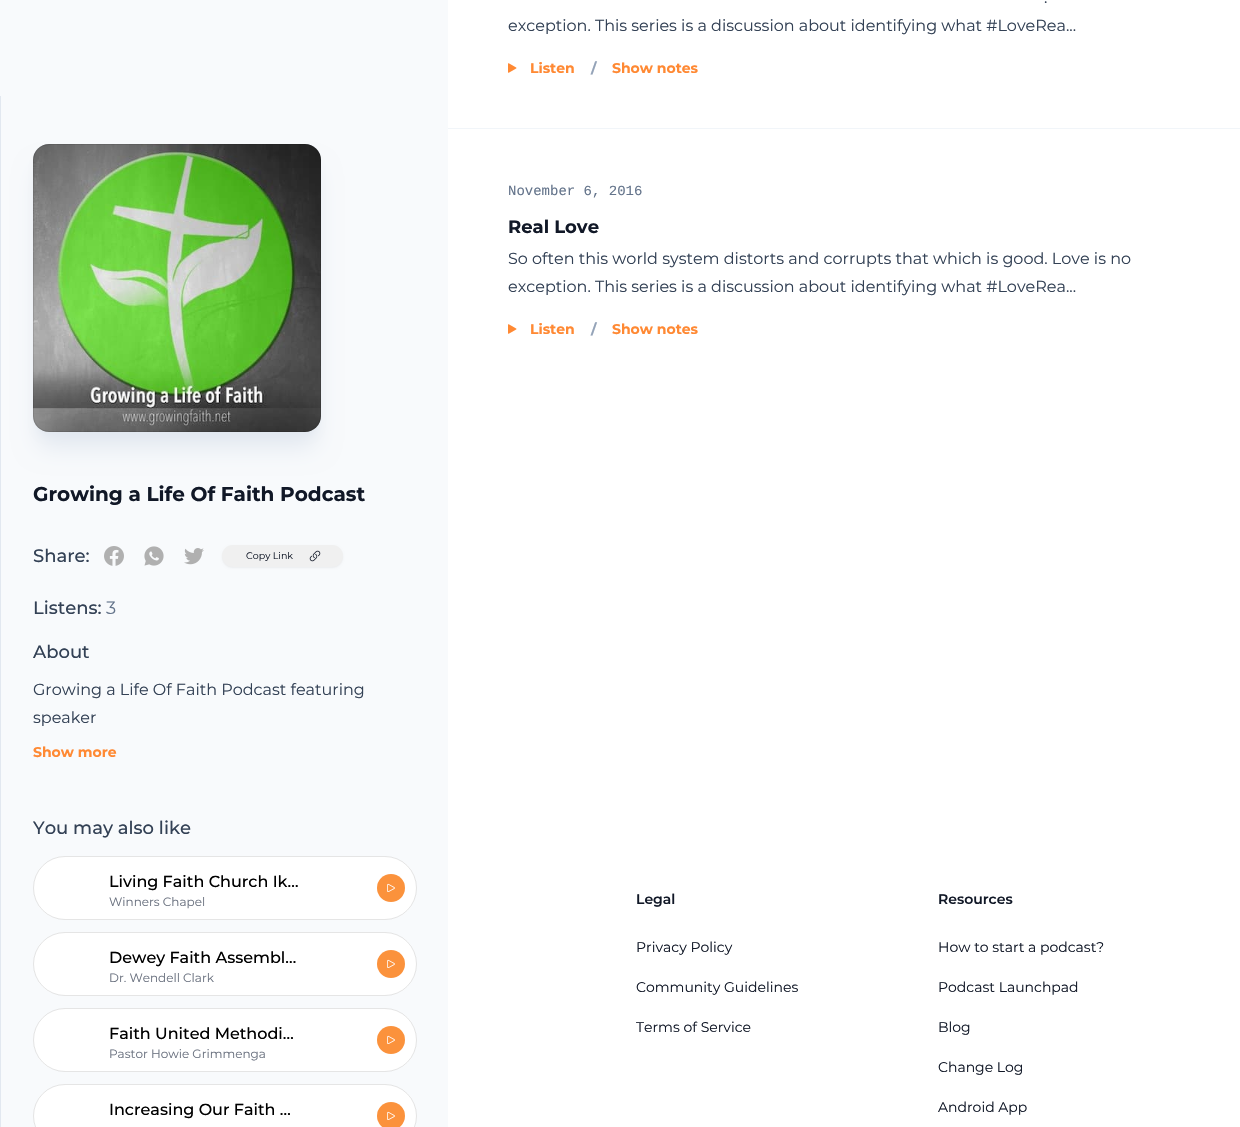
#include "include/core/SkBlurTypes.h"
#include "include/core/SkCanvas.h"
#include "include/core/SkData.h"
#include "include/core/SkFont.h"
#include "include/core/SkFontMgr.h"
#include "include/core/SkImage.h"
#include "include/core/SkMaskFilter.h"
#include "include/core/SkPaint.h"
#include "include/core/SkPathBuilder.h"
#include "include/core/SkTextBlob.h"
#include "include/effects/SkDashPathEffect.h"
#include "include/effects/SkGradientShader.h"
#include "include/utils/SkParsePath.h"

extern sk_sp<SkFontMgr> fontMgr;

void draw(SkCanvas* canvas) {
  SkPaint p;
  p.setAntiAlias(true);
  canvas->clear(SK_ColorWHITE);
  canvas->drawImageRect(SkImages::DeferredFromEncodedData(SkData::MakeFromFileName("images/1.png")), SkRect::MakeLTRB(508, 63, 517, 73), SkSamplingOptions());
  p.setColor(SkColorSetRGB(241, 245, 249));
  canvas->drawRect(SkRect::MakeLTRB(448, 128, 1240, 129), p);
  canvas->drawImageRect(SkImages::DeferredFromEncodedData(SkData::MakeFromFileName("images/1.png")), SkRect::MakeLTRB(508, 324, 517, 334), SkSamplingOptions());
  p.setColor(SkColorSetRGB(248, 250, 252));
  canvas->drawRect(SkRect::MakeLTRB(0, 0, 448, 1127), p);
  p.setColor(SkColorSetRGB(226, 232, 240));
  canvas->drawRect(SkRect::MakeLTRB(0, 96, 1, 1127), p);
  p.setMaskFilter(SkMaskFilter::MakeBlur(kNormal_SkBlurStyle, 5));
  canvas->drawRoundRect(SkRect::MakeLTRB(39, 158, 315, 434), 10, 10, p);
  p.setMaskFilter(nullptr);
  p.setMaskFilter(SkMaskFilter::MakeBlur(kNormal_SkBlurStyle, 12.5f));
  canvas->drawRoundRect(SkRect::MakeLTRB(38, 169, 316, 447), 11, 11, p);
  p.setMaskFilter(nullptr);
  canvas->drawRoundRect(SkRect::MakeLTRB(33, 144, 321, 432), 16, 16, p);
  canvas->drawImageRect(SkImages::DeferredFromEncodedData(SkData::MakeFromFileName("images/2.png")), SkRect::MakeLTRB(33, 144, 321, 432), SkSamplingOptions());
  p.setStyle(SkPaint::kStroke_Style);
  p.setStrokeWidth(1);
  p.setColor(SkColorSetARGB(26, 0, 0, 0));
  canvas->drawRoundRect(SkRect::MakeLTRB(33.5f, 144.5f, 320.5f, 431.5f), 15.5f, 15.5f, p);
  canvas->drawImageRect(SkImages::DeferredFromEncodedData(SkData::MakeFromFileName("images/3.png")), SkRect::MakeLTRB(104, 546, 124, 566), SkSamplingOptions());
  canvas->drawImageRect(SkImages::DeferredFromEncodedData(SkData::MakeFromFileName("images/4.png")), SkRect::MakeLTRB(144, 546, 164, 566), SkSamplingOptions());
  canvas->drawImageRect(SkImages::DeferredFromEncodedData(SkData::MakeFromFileName("images/5.png")), SkRect::MakeLTRB(184, 548, 204, 565), SkSamplingOptions());
  p.setStyle(SkPaint::kFill_Style);
  p.setColor(SkColorSetARGB(13, 0, 0, 0));
  p.setMaskFilter(SkMaskFilter::MakeBlur(kNormal_SkBlurStyle, 1));
  canvas->drawRoundRect(SkRect::MakeLTRB(222, 546, 343, 568), 11, 11, p);
  p.setMaskFilter(nullptr);
  p.setColor(SkColorSetRGB(240, 240, 240));
  canvas->drawRoundRect(SkRect::MakeLTRB(222, 545, 343, 567), 11, 11, p);
  canvas->drawImageRect(SkImages::DeferredFromEncodedData(SkData::MakeFromFileName("images/6.png")), SkRect::MakeLTRB(309, 550, 321, 562), SkSamplingOptions());
  p.setColor(SK_ColorWHITE);
  canvas->drawRoundRect(SkRect::MakeLTRB(33, 856, 417, 920), 32, 32, p);
  p.setStyle(SkPaint::kStroke_Style);
  p.setColor(SkColorSetARGB(26, 0, 0, 0));
  canvas->drawRoundRect(SkRect::MakeLTRB(33.5f, 856.5f, 416.5f, 919.5f), 31.5f, 31.5f, p);
  p.setStyle(SkPaint::kFill_Style);
  p.setColor(SkColorSetRGB(251, 146, 60));
  canvas->drawCircle(391, 888, 14, p);
  canvas->drawImageRect(SkImages::DeferredFromEncodedData(SkData::MakeFromFileName("images/7.png")), SkRect::MakeLTRB(387, 883, 395, 892), SkSamplingOptions());
  p.setColor(SK_ColorWHITE);
  canvas->drawRoundRect(SkRect::MakeLTRB(33, 932, 417, 996), 32, 32, p);
  p.setStyle(SkPaint::kStroke_Style);
  p.setColor(SkColorSetARGB(26, 0, 0, 0));
  canvas->drawRoundRect(SkRect::MakeLTRB(33.5f, 932.5f, 416.5f, 995.5f), 31.5f, 31.5f, p);
  p.setStyle(SkPaint::kFill_Style);
  p.setColor(SkColorSetRGB(251, 146, 60));
  canvas->drawCircle(391, 964, 14, p);
  canvas->drawImageRect(SkImages::DeferredFromEncodedData(SkData::MakeFromFileName("images/7.png")), SkRect::MakeLTRB(387, 959, 395, 968), SkSamplingOptions());
  p.setColor(SK_ColorWHITE);
  canvas->drawRoundRect(SkRect::MakeLTRB(33, 1008, 417, 1072), 32, 32, p);
  p.setStyle(SkPaint::kStroke_Style);
  p.setColor(SkColorSetARGB(26, 0, 0, 0));
  canvas->drawRoundRect(SkRect::MakeLTRB(33.5f, 1008.5f, 416.5f, 1071.5f), 31.5f, 31.5f, p);
  p.setStyle(SkPaint::kFill_Style);
  p.setColor(SkColorSetRGB(251, 146, 60));
  canvas->drawCircle(391, 1040, 14, p);
  canvas->drawImageRect(SkImages::DeferredFromEncodedData(SkData::MakeFromFileName("images/7.png")), SkRect::MakeLTRB(387, 1035, 395, 1044), SkSamplingOptions());
  p.setColor(SK_ColorWHITE);
  canvas->drawRoundRect(SkRect::MakeLTRB(33, 1084, 417, 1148), 32, 32, p);
  p.setStyle(SkPaint::kStroke_Style);
  p.setColor(SkColorSetARGB(26, 0, 0, 0));
  canvas->drawRoundRect(SkRect::MakeLTRB(33.5f, 1084.5f, 416.5f, 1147.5f), 31.5f, 31.5f, p);
  p.setStyle(SkPaint::kFill_Style);
  p.setColor(SkColorSetRGB(251, 146, 60));
  canvas->drawCircle(391, 1116, 14, p);
  canvas->drawImageRect(SkImages::DeferredFromEncodedData(SkData::MakeFromFileName("images/7.png")), SkRect::MakeLTRB(387, 1111, 395, 1120), SkSamplingOptions());
  SkFont font1(fontMgr->matchFamilyStyle("Montserrat", SkFontStyle::Normal()), 16);
  font1.setSubpixel(true);
  p.setColor(SkColorSetRGB(51, 65, 85));
  canvas->drawString(".", 1044, 3, font1, p);
  canvas->drawString("exception. This series is a discussion about identifying what #LoveRea...", 508, 31, font1, p);
  SkFont font2(fontMgr->matchFamilyStyle("Montserrat", SkFontStyle::Bold()), 14);
  font2.setSubpixel(true);
  p.setColor(SkColorSetRGB(255, 137, 51));
  canvas->drawString("Listen", 530, 73, font2, p);
  p.setColor(SkColorSetRGB(148, 163, 184));
  canvas->drawString("/", 591, 73, font2, p);
  p.setColor(SkColorSetRGB(255, 137, 51));
  canvas->drawString("Show notes", 612, 73, font2, p);
  SkFont font3(fontMgr->matchFamilyStyle("Liberation Mono", SkFontStyle::Normal()), 14);
  font3.setSubpixel(true);
  p.setColor(SkColorSetRGB(100, 116, 139));
  canvas->drawString("November 6, 2016", 508, 195, font3, p);
  SkFont font4(fontMgr->matchFamilyStyle("Montserrat", SkFontStyle::Bold()), 18);
  font4.setSubpixel(true);
  p.setColor(SkColorSetRGB(17, 24, 39));
  canvas->drawString("Real Love", 508, 233, font4, p);
  p.setColor(SkColorSetRGB(51, 65, 85));
  canvas->drawString("So often this world system distorts and corrupts that which is good. Love is no", 508, 264, font1, p);
  canvas->drawString("exception. This series is a discussion about identifying what #LoveRea...", 508, 292, font1, p);
  p.setColor(SkColorSetRGB(255, 137, 51));
  canvas->drawString("Listen", 530, 334, font2, p);
  p.setColor(SkColorSetRGB(148, 163, 184));
  canvas->drawString("/", 591, 334, font2, p);
  p.setColor(SkColorSetRGB(255, 137, 51));
  canvas->drawString("Show notes", 612, 334, font2, p);
  SkFont font5(fontMgr->matchFamilyStyle("Montserrat", SkFontStyle::Bold()), 20);
  font5.setSubpixel(true);
  p.setColor(SkColorSetRGB(17, 24, 39));
  canvas->drawString("Growing a Life Of Faith Podcast", 33, 501, font5, p);
  SkFont font6(fontMgr->matchFamilyStyle("Montserrat", SkFontStyle(500, SkFontStyle::kNormal_Width, SkFontStyle::kUpright_Slant)), 18);
  font6.setSubpixel(true);
  p.setColor(SkColorSetRGB(51, 65, 85));
  canvas->drawString("Share:", 33, 562, font6, p);
  SkFont font7(fontMgr->matchFamilyStyle("Montserrat", SkFontStyle::Normal()), 9.5f);
  font7.setSubpixel(true);
  p.setColor(SkColorSetRGB(17, 24, 39));
  canvas->drawString("Copy Link", 246, 559, font7, p);
  p.setColor(SkColorSetRGB(51, 65, 85));
  canvas->drawString("Listens:", 33, 614, font6, p);
  SkFont font8(fontMgr->matchFamilyStyle("Montserrat", SkFontStyle::Normal()), 18);
  font8.setSubpixel(true);
  p.setColor(SkColorSetRGB(100, 116, 139));
  canvas->drawString("3", 106, 614, font8, p);
  p.setColor(SkColorSetRGB(51, 65, 85));
  canvas->drawString("About", 33, 658, font6, p);
  canvas->drawString("Growing a Life Of Faith Podcast featuring", 33, 695, font1, p);
  canvas->drawString("speaker", 33, 723, font1, p);
  p.setColor(SkColorSetRGB(255, 137, 51));
  canvas->drawString("Show more", 33, 757, font2, p);
  p.setColor(SkColorSetRGB(51, 65, 85));
  canvas->drawString("You may also like", 33, 834, font6, p);
  SkFont font9(fontMgr->matchFamilyStyle("Montserrat", SkFontStyle(500, SkFontStyle::kNormal_Width, SkFontStyle::kUpright_Slant)), 16);
  font9.setSubpixel(true);
  p.setColor(SK_ColorBLACK);
  canvas->drawString("Living Faith Church Ik…", 109, 887, font9, p);
  SkFont font10(fontMgr->matchFamilyStyle("Montserrat", SkFontStyle::Normal()), 12);
  font10.setSubpixel(true);
  p.setColor(SkColorSetRGB(107, 114, 128));
  canvas->drawString("Winners Chapel", 109, 906, font10, p);
  p.setColor(SK_ColorBLACK);
  canvas->drawString("Dewey Faith Assembl…", 109, 963, font9, p);
  p.setColor(SkColorSetRGB(107, 114, 128));
  canvas->drawString("Dr. Wendell Clark", 109, 982, font10, p);
  p.setColor(SK_ColorBLACK);
  canvas->drawString("Faith United Methodi…", 109, 1039, font9, p);
  p.setColor(SkColorSetRGB(107, 114, 128));
  canvas->drawString("Pastor Howie Grimmenga", 109, 1058, font10, p);
  p.setColor(SK_ColorBLACK);
  canvas->drawString("Increasing Our Faith …", 109, 1115, font9, p);
  SkFont font11(fontMgr->matchFamilyStyle("Montserrat", SkFontStyle(600, SkFontStyle::kNormal_Width, SkFontStyle::kUpright_Slant)), 14);
  font11.setSubpixel(true);
  p.setColor(SkColorSetRGB(17, 24, 39));
  canvas->drawString("Legal", 636, 904, font11, p);
  SkFont font12(fontMgr->matchFamilyStyle("Montserrat", SkFontStyle::Normal()), 14);
  font12.setSubpixel(true);
  canvas->drawString("Privacy Policy", 636, 952, font12, p);
  canvas->drawString("Community Guidelines", 636, 992, font12, p);
  canvas->drawString("Terms of Service", 636, 1032, font12, p);
  canvas->drawString("Resources", 938, 904, font11, p);
  canvas->drawString("How to start a podcast?", 938, 952, font12, p);
  canvas->drawString("Podcast Launchpad", 938, 992, font12, p);
  canvas->drawString("Blog", 938, 1032, font12, p);
  canvas->drawString("Change Log", 938, 1072, font12, p);
  canvas->drawString("Android App", 938, 1112, font12, p);
}
